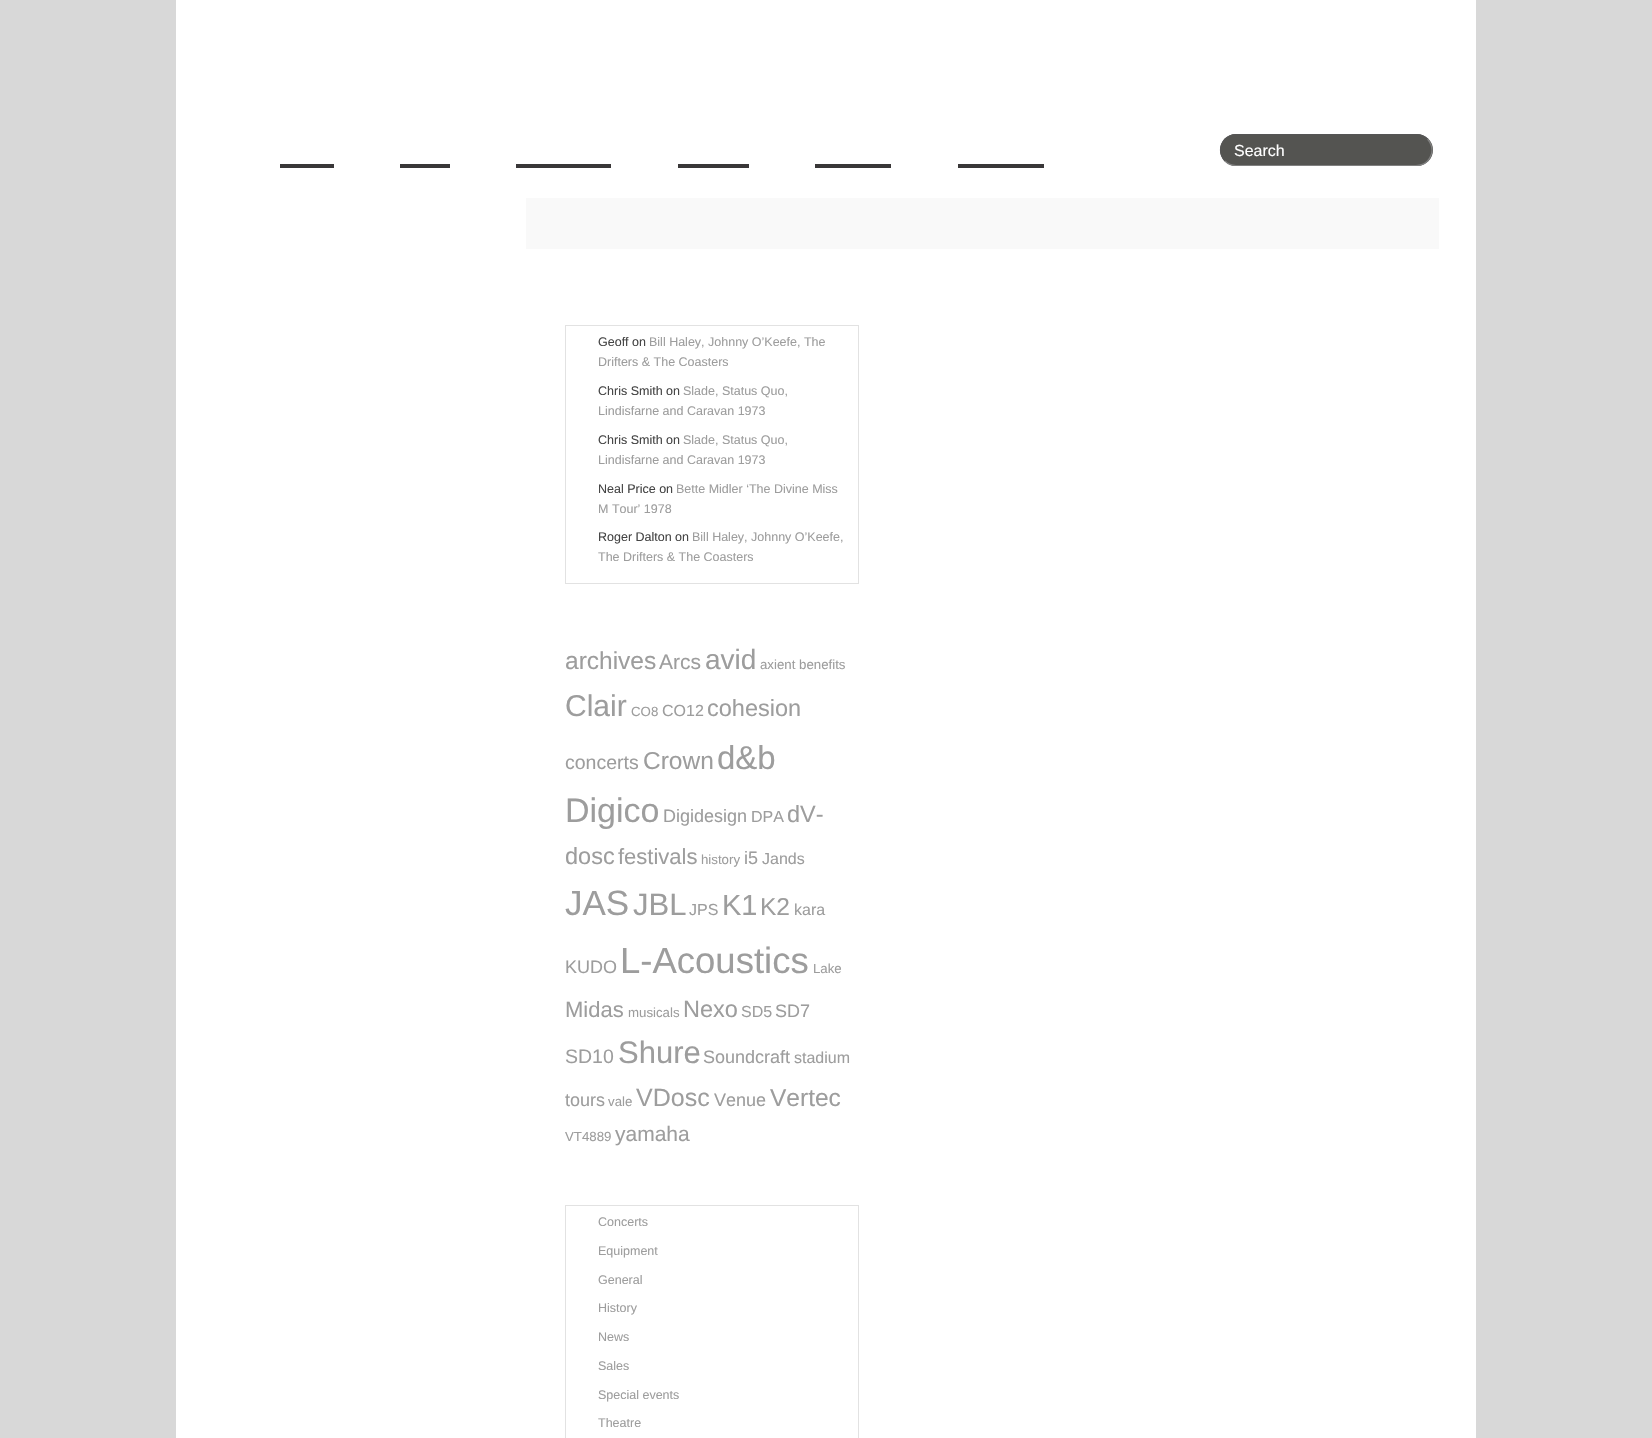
#include "include/core/SkBlurTypes.h"
#include "include/core/SkCanvas.h"
#include "include/core/SkData.h"
#include "include/core/SkFont.h"
#include "include/core/SkFontMgr.h"
#include "include/core/SkImage.h"
#include "include/core/SkMaskFilter.h"
#include "include/core/SkPaint.h"
#include "include/core/SkPathBuilder.h"
#include "include/core/SkTextBlob.h"
#include "include/effects/SkDashPathEffect.h"
#include "include/effects/SkGradientShader.h"
#include "include/utils/SkParsePath.h"

extern sk_sp<SkFontMgr> fontMgr;

void draw(SkCanvas* canvas) {
  SkPaint p;
  p.setAntiAlias(true);
  canvas->clear(SkColorSetRGB(216, 216, 216));
  p.setColor(SK_ColorWHITE);
  canvas->drawRect(SkRect::MakeLTRB(176, 0, 1476, 1438), p);
  p.setColor(SkColorSetRGB(84, 84, 81));
  canvas->drawRoundRect(SkRect::MakeLTRB(1220, 134, 1433, 166), 16, 16, p);
  p.setStyle(SkPaint::kStroke_Style);
  p.setStrokeWidth(1.2f);
  p.setColor(SkColorSetRGB(128, 128, 128));
  canvas->drawPath(SkPathBuilder().moveTo(1427.5f, 139).cubicTo(1430, 142, 1432, 146, 1432, 150).cubicTo(1432, 154, 1430, 158, 1427.5f, 161).cubicTo(1424.5f, 164, 1420.5f, 165.5f, 1416, 165.5f).lineTo(1236, 165.5f).cubicTo(1232, 165.5f, 1228, 164, 1225, 161).detach(), p);
  p.setColor(SkColorSetRGB(85, 85, 85));
  canvas->drawPath(SkPathBuilder().moveTo(1225, 161).cubicTo(1222.5f, 158, 1220.5f, 154, 1220.5f, 150).cubicTo(1220.5f, 146, 1222.5f, 142, 1225, 139).cubicTo(1228, 136, 1232, 134.5f, 1236, 134.5f).lineTo(1416, 134.5f).cubicTo(1420.5f, 134.5f, 1424.5f, 136, 1427.5f, 139).detach(), p);
  p.setStyle(SkPaint::kFill_Style);
  p.setColor(SkColorSetRGB(57, 55, 56));
  canvas->drawRect(SkRect::MakeLTRB(280, 164, 334, 168), p);
  canvas->drawRect(SkRect::MakeLTRB(400, 164, 450, 168), p);
  canvas->drawRect(SkRect::MakeLTRB(516, 164, 611, 168), p);
  canvas->drawRect(SkRect::MakeLTRB(678, 164, 749, 168), p);
  canvas->drawRect(SkRect::MakeLTRB(815, 164, 891, 168), p);
  canvas->drawRect(SkRect::MakeLTRB(958, 164, 1044, 168), p);
  p.setColor(SkColorSetRGB(249, 249, 249));
  canvas->drawRect(SkRect::MakeLTRB(526, 198, 1439, 249), p);
  p.setStyle(SkPaint::kStroke_Style);
  p.setStrokeWidth(1);
  p.setColor(SkColorSetRGB(226, 226, 226));
  canvas->drawRect(SkRect::MakeLTRB(565.5f, 325.5f, 858.5f, 583.5f), p);
  canvas->drawRect(SkRect::MakeLTRB(565.5f, 1205.5f, 858.5f, 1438.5f), p);
  SkFont font1(fontMgr->matchFamilyStyle("Liberation Sans", SkFontStyle::Normal()), 16);
  font1.setSubpixel(true);
  p.setStyle(SkPaint::kFill_Style);
  p.setColor(SK_ColorWHITE);
  canvas->drawString("Search", 1234, 156, font1, p);
  SkFont font2(fontMgr->matchFamilyStyle("Liberation Sans", SkFontStyle::Normal()), 12.5f);
  font2.setSubpixel(true);
  p.setColor(SkColorSetRGB(68, 68, 68));
  canvas->drawString("Geoff on", 598, 346, font2, p);
  p.setColor(SkColorSetRGB(157, 157, 157));
  canvas->drawString("Bill Haley, Johnny O’Keefe, The", 649, 346, font2, p);
  canvas->drawString("Drifters & The Coasters", 598, 366, font2, p);
  p.setColor(SkColorSetRGB(68, 68, 68));
  canvas->drawString("Chris Smith on", 598, 395, font2, p);
  p.setColor(SkColorSetRGB(157, 157, 157));
  canvas->drawString("Slade, Status Quo,", 683, 395, font2, p);
  canvas->drawString("Lindisfarne and Caravan 1973", 598, 415, font2, p);
  p.setColor(SkColorSetRGB(68, 68, 68));
  canvas->drawString("Chris Smith on", 598, 444, font2, p);
  p.setColor(SkColorSetRGB(157, 157, 157));
  canvas->drawString("Slade, Status Quo,", 683, 444, font2, p);
  canvas->drawString("Lindisfarne and Caravan 1973", 598, 464, font2, p);
  p.setColor(SkColorSetRGB(68, 68, 68));
  canvas->drawString("Neal Price on", 598, 493, font2, p);
  p.setColor(SkColorSetRGB(157, 157, 157));
  canvas->drawString("Bette Midler ‘The Divine Miss", 676, 493, font2, p);
  canvas->drawString("M Tour’ 1978", 598, 513, font2, p);
  p.setColor(SkColorSetRGB(68, 68, 68));
  canvas->drawString("Roger Dalton on", 598, 541, font2, p);
  p.setColor(SkColorSetRGB(157, 157, 157));
  canvas->drawString("Bill Haley, Johnny O’Keefe,", 692, 541, font2, p);
  canvas->drawString("The Drifters & The Coasters", 598, 561, font2, p);
  SkFont font3(fontMgr->matchFamilyStyle("Liberation Sans", SkFontStyle::Normal()), 24.5f);
  font3.setSubpixel(true);
  canvas->drawString("archives", 565, 669, font3, p);
  SkFont font4(fontMgr->matchFamilyStyle("Liberation Sans", SkFontStyle::Normal()), 21);
  font4.setSubpixel(true);
  canvas->drawString("Arcs", 659, 669, font4, p);
  SkFont font5(fontMgr->matchFamilyStyle("Liberation Sans", SkFontStyle::Normal()), 28);
  font5.setSubpixel(true);
  canvas->drawString("avid", 705, 669, font5, p);
  SkFont font6(fontMgr->matchFamilyStyle("Liberation Sans", SkFontStyle::Normal()), 13.25f);
  font6.setSubpixel(true);
  canvas->drawString("axient benefits", 760, 669, font6, p);
  SkFont font7(fontMgr->matchFamilyStyle("Liberation Sans", SkFontStyle::Normal()), 30);
  font7.setSubpixel(true);
  canvas->drawString("Clair", 565, 716, font7, p);
  canvas->drawString("CO8", 631, 716, font6, p);
  canvas->drawString("CO12", 662, 716, font1, p);
  SkFont font8(fontMgr->matchFamilyStyle("Liberation Sans", SkFontStyle::Normal()), 23.5f);
  font8.setSubpixel(true);
  canvas->drawString("cohesion", 707, 716, font8, p);
  SkFont font9(fontMgr->matchFamilyStyle("Liberation Sans", SkFontStyle::Normal()), 19.5f);
  font9.setSubpixel(true);
  canvas->drawString("concerts", 565, 769, font9, p);
  canvas->drawString("Crown", 643, 769, font3, p);
  SkFont font10(fontMgr->matchFamilyStyle("Liberation Sans", SkFontStyle::Normal()), 33);
  font10.setSubpixel(true);
  canvas->drawString("d&b", 717, 769, font10, p);
  SkFont font11(fontMgr->matchFamilyStyle("Liberation Sans", SkFontStyle::Normal()), 34);
  font11.setSubpixel(true);
  canvas->drawString("Digico", 565, 822, font11, p);
  SkFont font12(fontMgr->matchFamilyStyle("Liberation Sans", SkFontStyle::Normal()), 18);
  font12.setSubpixel(true);
  canvas->drawString("Digidesign", 663, 822, font12, p);
  canvas->drawString("DPA", 751, 822, font1, p);
  canvas->drawString("dV-", 787, 822, font8, p);
  canvas->drawString("dosc", 565, 864, font8, p);
  SkFont font13(fontMgr->matchFamilyStyle("Liberation Sans", SkFontStyle::Normal()), 22);
  font13.setSubpixel(true);
  canvas->drawString("festivals", 618, 864, font13, p);
  canvas->drawString("history", 701, 864, font6, p);
  canvas->drawString("i5", 744, 864, font12, p);
  canvas->drawString("Jands", 762, 864, font1, p);
  SkFont font14(fontMgr->matchFamilyStyle("Liberation Sans", SkFontStyle::Normal()), 35);
  font14.setSubpixel(true);
  canvas->drawString("JAS", 565, 915, font14, p);
  SkFont font15(fontMgr->matchFamilyStyle("Liberation Sans", SkFontStyle::Normal()), 31);
  font15.setSubpixel(true);
  canvas->drawString("JBL", 633, 915, font15, p);
  canvas->drawString("JPS", 689, 915, font1, p);
  SkFont font16(fontMgr->matchFamilyStyle("Liberation Sans", SkFontStyle::Normal()), 29);
  font16.setSubpixel(true);
  canvas->drawString("K1", 722, 915, font16, p);
  canvas->drawString("K2", 760, 915, font3, p);
  canvas->drawString("kara", 794, 915, font1, p);
  canvas->drawString("KUDO", 565, 973, font12, p);
  SkFont font17(fontMgr->matchFamilyStyle("Liberation Sans", SkFontStyle::Normal()), 36.5f);
  font17.setSubpixel(true);
  canvas->drawString("L-Acoustics", 620, 973, font17, p);
  canvas->drawString("Lake", 813, 973, font6, p);
  canvas->drawString("Midas", 565, 1017, font13, p);
  canvas->drawString("musicals", 628, 1017, font6, p);
  canvas->drawString("Nexo", 683, 1017, font8, p);
  canvas->drawString("SD5", 741, 1017, font1, p);
  canvas->drawString("SD7", 775, 1017, font12, p);
  canvas->drawString("SD10", 565, 1063, font9, p);
  canvas->drawString("Shure", 618, 1063, font15, p);
  canvas->drawString("Soundcraft", 703, 1063, font12, p);
  canvas->drawString("stadium", 794, 1063, font1, p);
  canvas->drawString("tours", 565, 1106, font12, p);
  canvas->drawString("vale", 608, 1106, font6, p);
  SkFont font18(fontMgr->matchFamilyStyle("Liberation Sans", SkFontStyle::Normal()), 25);
  font18.setSubpixel(true);
  canvas->drawString("VDosc", 636, 1106, font18, p);
  canvas->drawString("Venue", 714, 1106, font12, p);
  canvas->drawString("Vertec", 770, 1106, font3, p);
  canvas->drawString("VT4889", 565, 1141, font6, p);
  canvas->drawString("yamaha", 615, 1141, font4, p);
  canvas->drawString("Concerts", 598, 1226, font2, p);
  canvas->drawString("Equipment", 598, 1255, font2, p);
  canvas->drawString("General", 598, 1284, font2, p);
  canvas->drawString("History", 598, 1312, font2, p);
  canvas->drawString("News", 598, 1341, font2, p);
  canvas->drawString("Sales", 598, 1370, font2, p);
  canvas->drawString("Special events", 598, 1399, font2, p);
  canvas->drawString("Theatre", 598, 1427, font2, p);
}
